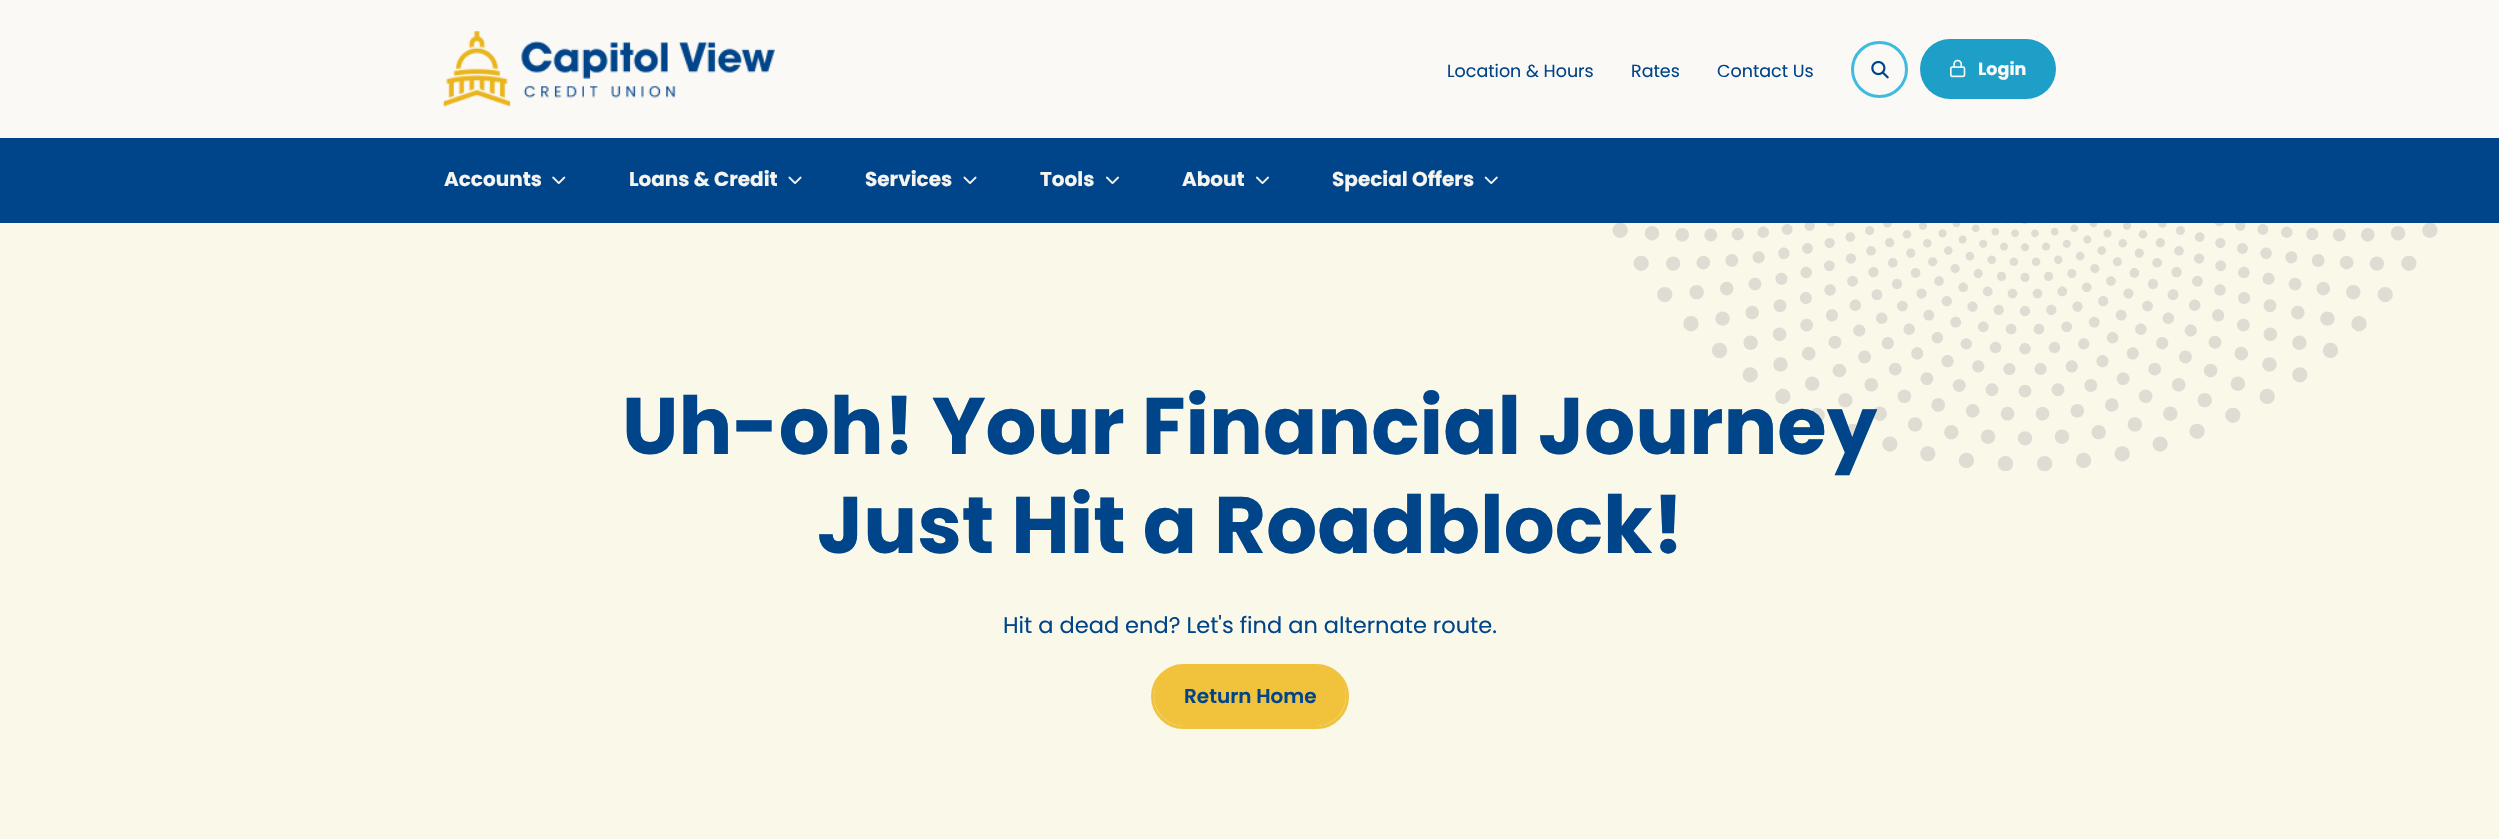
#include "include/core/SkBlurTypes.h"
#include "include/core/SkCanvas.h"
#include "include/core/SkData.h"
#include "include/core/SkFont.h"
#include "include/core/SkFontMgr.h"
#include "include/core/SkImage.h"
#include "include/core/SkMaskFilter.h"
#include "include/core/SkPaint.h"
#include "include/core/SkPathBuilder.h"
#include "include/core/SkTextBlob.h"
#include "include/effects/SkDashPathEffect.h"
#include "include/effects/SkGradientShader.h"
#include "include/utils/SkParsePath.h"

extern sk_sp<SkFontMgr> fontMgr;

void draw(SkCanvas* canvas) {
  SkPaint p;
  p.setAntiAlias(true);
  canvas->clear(SkColorSetRGB(249, 248, 233));
  p.setColor(SkColorSetRGB(250, 249, 245));
  canvas->drawRect(SkRect::MakeLTRB(0, 0, 2499, 138), p);
  canvas->drawImageRect(SkImages::DeferredFromEncodedData(SkData::MakeFromFileName("images/1.png")), SkRect::MakeLTRB(443, 31, 775, 107), SkSamplingOptions());
  p.setStyle(SkPaint::kStroke_Style);
  p.setStrokeWidth(3);
  p.setColor(SkColorSetRGB(65, 186, 224));
  canvas->drawCircle(1879.5f, 69.5f, 27, p);
  canvas->drawImageRect(SkImages::DeferredFromEncodedData(SkData::MakeFromFileName("images/2.png")), SkRect::MakeLTRB(1871, 60, 1889, 79), SkSamplingOptions());
  p.setStyle(SkPaint::kFill_Style);
  p.setColor(SkColorSetRGB(30, 159, 200));
  canvas->drawRoundRect(SkRect::MakeLTRB(1920, 39, 2056, 99), 30, 30, p);
  canvas->drawImageRect(SkImages::DeferredFromEncodedData(SkData::MakeFromFileName("images/3.png")), SkRect::MakeLTRB(1950, 59, 1966, 78), SkSamplingOptions());
  p.setColor(SkColorSetRGB(0, 68, 138));
  canvas->drawRect(SkRect::MakeLTRB(0, 138, 2499, 223), p);
  canvas->drawImageRect(SkImages::DeferredFromEncodedData(SkData::MakeFromFileName("images/4.png")), SkRect::MakeLTRB(552, 176, 566, 184), SkSamplingOptions());
  canvas->drawImageRect(SkImages::DeferredFromEncodedData(SkData::MakeFromFileName("images/5.png")), SkRect::MakeLTRB(788, 176, 802, 184), SkSamplingOptions());
  canvas->drawImageRect(SkImages::DeferredFromEncodedData(SkData::MakeFromFileName("images/5.png")), SkRect::MakeLTRB(963, 176, 977, 184), SkSamplingOptions());
  canvas->drawImageRect(SkImages::DeferredFromEncodedData(SkData::MakeFromFileName("images/6.png")), SkRect::MakeLTRB(1106, 176, 1119, 184), SkSamplingOptions());
  canvas->drawImageRect(SkImages::DeferredFromEncodedData(SkData::MakeFromFileName("images/6.png")), SkRect::MakeLTRB(1256, 176, 1269, 184), SkSamplingOptions());
  canvas->drawImageRect(SkImages::DeferredFromEncodedData(SkData::MakeFromFileName("images/7.png")), SkRect::MakeLTRB(1484, 176, 1498, 184), SkSamplingOptions());
  canvas->drawImageRect(SkImages::DeferredFromEncodedData(SkData::MakeFromFileName("images/8.png")), SkRect::MakeLTRB(1612, 223, 2438, 471), SkSamplingOptions());
  p.setStyle(SkPaint::kStroke_Style);
  p.setColor(SkColorSetRGB(241, 194, 59));
  canvas->drawRoundRect(SkRect::MakeLTRB(1152.5f, 665.5f, 1347.5f, 727.5f), 31, 31, p);
  p.setStyle(SkPaint::kFill_Style);
  canvas->drawRoundRect(SkRect::MakeLTRB(1154, 666, 1346, 726), 30, 30, p);
  SkFont font1(fontMgr->matchFamilyStyle("Poppins", SkFontStyle::Normal()), 17.5f);
  font1.setSubpixel(true);
  p.setColor(SkColorSetRGB(0, 68, 138));
  canvas->drawString("Location & Hours", 1447, 77, font1, p);
  canvas->drawString("Rates", 1631, 77, font1, p);
  canvas->drawString("Contact Us", 1717, 77, font1, p);
  SkFont font2(fontMgr->matchFamilyStyle("Poppins", SkFontStyle::Bold()), 17.5f);
  font2.setSubpixel(true);
  p.setColor(SkColorSetRGB(250, 249, 245));
  canvas->drawString("Login", 1978, 75, font2, p);
  SkFont font3(fontMgr->matchFamilyStyle("Poppins", SkFontStyle::Bold()), 20);
  font3.setSubpixel(true);
  p.setColor(SkColorSetRGB(245, 244, 239));
  canvas->drawString("Accounts", 444, 186, font3, p);
  canvas->drawString("Loans & Credit", 629, 186, font3, p);
  canvas->drawString("Services", 865, 186, font3, p);
  canvas->drawString("Tools", 1040, 186, font3, p);
  canvas->drawString("About", 1182, 186, font3, p);
  canvas->drawString("Special Offers", 1332, 186, font3, p);
  SkFont font4(fontMgr->matchFamilyStyle("Poppins", SkFontStyle::Bold()), 80);
  font4.setSubpixel(true);
  p.setColor(SkColorSetRGB(0, 68, 138));
  canvas->drawString("Uh-oh! Your Financial Journey", 622, 454, font4, p);
  canvas->drawString("Just Hit a Roadblock!", 817, 553, font4, p);
  SkFont font5(fontMgr->matchFamilyStyle("Poppins", SkFontStyle::Normal()), 22.5f);
  font5.setSubpixel(true);
  canvas->drawString("Hit a dead end? Let's find an alternate route.", 1003, 633, font5, p);
  SkFont font6(fontMgr->matchFamilyStyle("Poppins", SkFontStyle(600, SkFontStyle::kNormal_Width, SkFontStyle::kUpright_Slant)), 20);
  font6.setSubpixel(true);
  canvas->drawString("Return Home", 1184, 703, font6, p);
}
